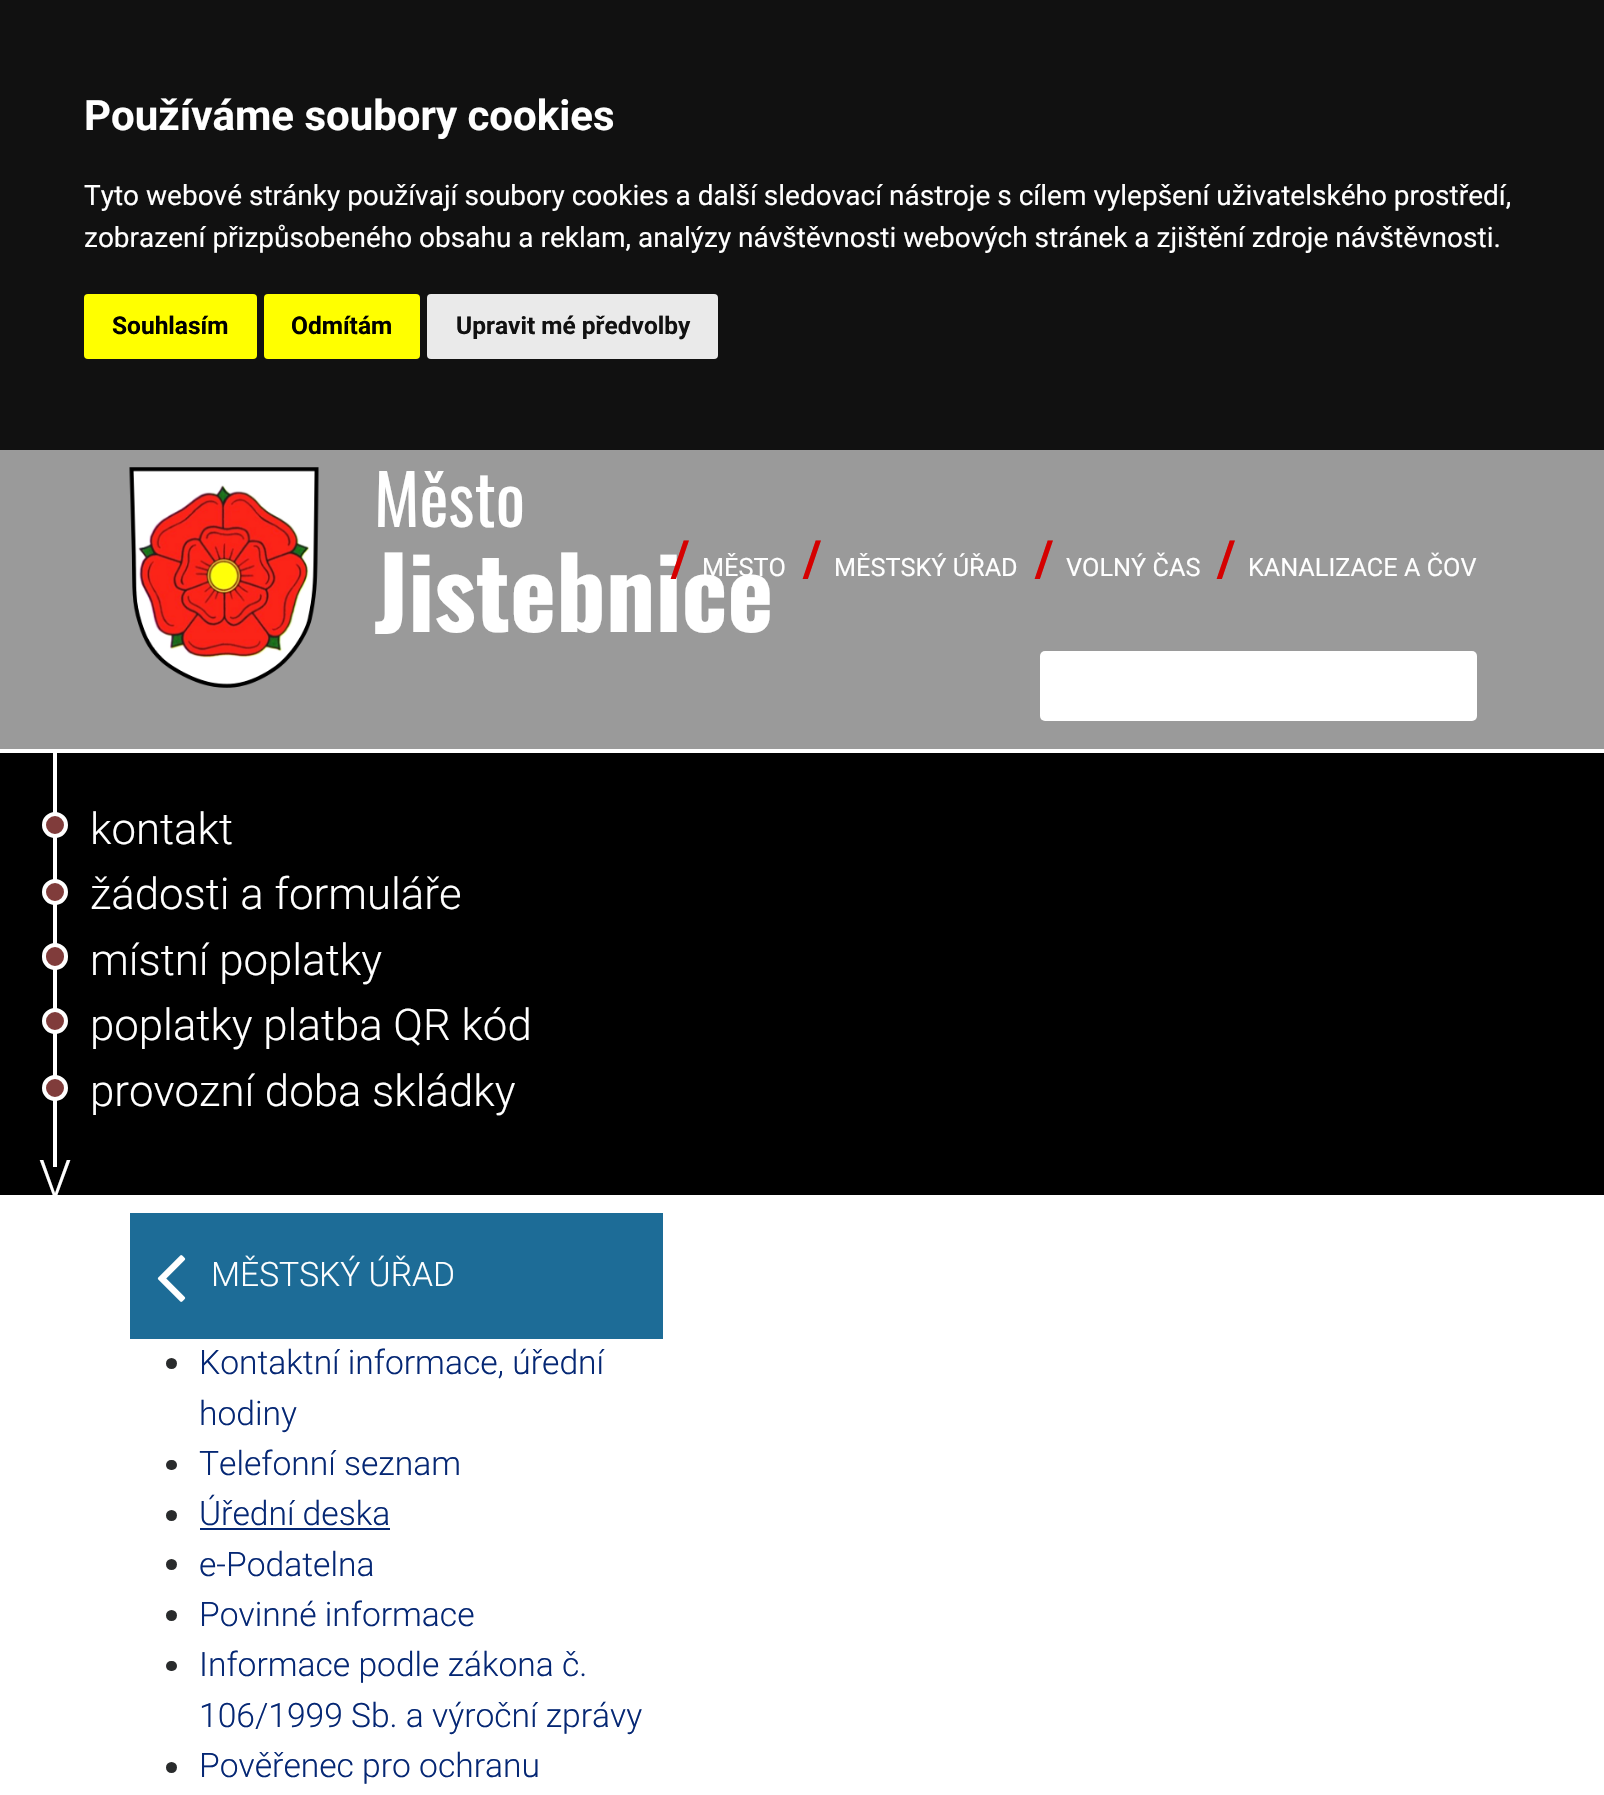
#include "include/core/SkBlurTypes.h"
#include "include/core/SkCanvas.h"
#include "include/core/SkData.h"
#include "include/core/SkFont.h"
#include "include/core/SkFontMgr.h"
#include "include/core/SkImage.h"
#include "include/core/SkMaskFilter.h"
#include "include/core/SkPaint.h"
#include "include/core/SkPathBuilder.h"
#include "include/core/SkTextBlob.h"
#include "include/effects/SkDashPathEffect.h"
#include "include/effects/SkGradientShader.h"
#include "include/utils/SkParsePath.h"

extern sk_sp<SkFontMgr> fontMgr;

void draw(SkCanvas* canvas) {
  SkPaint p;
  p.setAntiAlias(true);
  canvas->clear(SK_ColorWHITE);
  p.setColor(SkColorSetRGB(17, 17, 17));
  canvas->drawRect(SkRect::MakeLTRB(0, 0, 1604, 450), p);
  p.setColor(SkColorSetRGB(255, 255, 0));
  canvas->drawRoundRect(SkRect::MakeLTRB(84, 294, 257, 359), 4, 4, p);
  canvas->drawRoundRect(SkRect::MakeLTRB(264, 294, 420, 359), 4, 4, p);
  p.setColor(SkColorSetRGB(234, 234, 234));
  canvas->drawRoundRect(SkRect::MakeLTRB(427, 294, 718, 359), 4, 4, p);
  p.setColor(SkColorSetRGB(154, 154, 154));
  canvas->drawRect(SkRect::MakeLTRB(0, 450, 1604, 749), p);
  canvas->drawImageRect(SkImages::DeferredFromEncodedData(SkData::MakeFromFileName("images/1.png")), SkRect::MakeLTRB(129, 467, 319, 688), SkSamplingOptions());
  p.setColor(SK_ColorWHITE);
  canvas->drawRoundRect(SkRect::MakeLTRB(1040, 651, 1477, 721), 5, 5, p);
  p.setColor(SK_ColorBLACK);
  canvas->drawRect(SkRect::MakeLTRB(0, 753, 1604, 1195), p);
  p.setColor(SK_ColorWHITE);
  canvas->drawRect(SkRect::MakeLTRB(53, 753, 57, 1167), p);
  p.setColor(SkColorSetRGB(128, 60, 59));
  canvas->drawCircle(55, 825, 11, p);
  p.setStyle(SkPaint::kStroke_Style);
  p.setStrokeWidth(4);
  p.setColor(SK_ColorWHITE);
  canvas->drawCircle(55, 825, 11, p);
  p.setStyle(SkPaint::kFill_Style);
  p.setColor(SkColorSetRGB(128, 60, 59));
  canvas->drawCircle(55, 892, 11, p);
  p.setStyle(SkPaint::kStroke_Style);
  p.setColor(SK_ColorWHITE);
  canvas->drawCircle(55, 892, 11, p);
  p.setStyle(SkPaint::kFill_Style);
  p.setColor(SkColorSetRGB(128, 60, 59));
  canvas->drawRoundRect(SkRect::MakeLTRB(44, 945, 66, 968), 11, 11, p);
  p.setStyle(SkPaint::kStroke_Style);
  p.setColor(SK_ColorWHITE);
  canvas->drawRoundRect(SkRect::MakeLTRB(44, 945, 66, 968), 11, 11, p);
  p.setStyle(SkPaint::kFill_Style);
  p.setColor(SkColorSetRGB(128, 60, 59));
  canvas->drawCircle(55, 1021, 11, p);
  p.setStyle(SkPaint::kStroke_Style);
  p.setColor(SK_ColorWHITE);
  canvas->drawCircle(55, 1021, 11, p);
  p.setStyle(SkPaint::kFill_Style);
  p.setColor(SkColorSetRGB(128, 60, 59));
  canvas->drawCircle(55, 1088, 11, p);
  p.setStyle(SkPaint::kStroke_Style);
  p.setColor(SK_ColorWHITE);
  canvas->drawCircle(55, 1088, 11, p);
  p.setStyle(SkPaint::kFill_Style);
  p.setColor(SkColorSetRGB(29, 108, 151));
  canvas->drawRect(SkRect::MakeLTRB(130, 1213, 663, 1339), p);
  canvas->drawImageRect(SkImages::DeferredFromEncodedData(SkData::MakeFromFileName("images/2.png")), SkRect::MakeLTRB(157, 1255, 186, 1302), SkSamplingOptions());
  p.setColor(SkColorSetRGB(41, 43, 44));
  canvas->drawCircle(171.5f, 1363.5f, 5.5f, p);
  canvas->drawRoundRect(SkRect::MakeLTRB(166, 1460, 177, 1470), 5, 5, p);
  canvas->drawCircle(171.5f, 1515.5f, 5.5f, p);
  p.setColor(SkColorSetRGB(5, 39, 116));
  canvas->drawRect(SkRect::MakeLTRB(200, 1528, 390, 1530), p);
  p.setColor(SkColorSetRGB(41, 43, 44));
  canvas->drawCircle(171.5f, 1564.5f, 5.5f, p);
  canvas->drawCircle(171.5f, 1615.5f, 5.5f, p);
  canvas->drawRoundRect(SkRect::MakeLTRB(166, 1661, 177, 1671), 5, 5, p);
  canvas->drawCircle(171.5f, 1767.5f, 5.5f, p);
  SkFont font1(fontMgr->matchFamilyStyle("Roboto", SkFontStyle::Bold()), 42);
  font1.setSubpixel(true);
  p.setColor(SK_ColorWHITE);
  canvas->drawString("Používáme soubory cookies", 84, 130, font1, p);
  SkFont font2(fontMgr->matchFamilyStyle("Roboto", SkFontStyle::Normal()), 28);
  font2.setSubpixel(true);
  canvas->drawString("Tyto webové stránky používají soubory cookies a další sledovací nástroje s cílem vylepšení uživatelského prostředí,", 84, 205, font2, p);
  canvas->drawString("zobrazení přizpůsobeného obsahu a reklam, analýzy návštěvnosti webových stránek a zjištění zdroje návštěvnosti.", 84, 247, font2, p);
  SkFont font3(fontMgr->matchFamilyStyle("Roboto", SkFontStyle::Bold()), 24.5f);
  font3.setSubpixel(true);
  p.setColor(SK_ColorBLACK);
  canvas->drawString("Souhlasím", 112, 334, font3, p);
  canvas->drawString("Odmítám", 291, 334, font3, p);
  p.setColor(SkColorSetRGB(17, 17, 17));
  canvas->drawString("Upravit mé předvolby", 456, 334, font3, p);
  SkFont font4(fontMgr->matchFamilyStyle("Oswald", SkFontStyle::Normal()), 69);
  font4.setSubpixel(true);
  p.setColor(SK_ColorWHITE);
  canvas->drawString("Město", 374, 527, font4, p);
  SkFont font5(fontMgr->matchFamilyStyle("Oswald", SkFontStyle::Bold()), 98);
  font5.setSubpixel(true);
  canvas->drawString("Jistebnice", 374, 632, font5, p);
  SkFont font6(fontMgr->matchFamilyStyle("Roboto", SkFontStyle::Bold()), 50);
  font6.setSubpixel(true);
  p.setColor(SkColorSetRGB(213, 0, 0));
  canvas->drawString("/", 671, 576, font6, p);
  SkFont font7(fontMgr->matchFamilyStyle("Roboto", SkFontStyle::Normal()), 25.25f);
  font7.setSubpixel(true);
  p.setColor(SK_ColorWHITE);
  canvas->drawString("MĚSTO", 702, 576, font7, p);
  p.setColor(SkColorSetRGB(213, 0, 0));
  canvas->drawString("/", 803, 576, font6, p);
  p.setColor(SK_ColorWHITE);
  canvas->drawString("MĚSTSKÝ ÚŘAD", 834, 576, font7, p);
  p.setColor(SkColorSetRGB(213, 0, 0));
  canvas->drawString("/", 1035, 576, font6, p);
  p.setColor(SK_ColorWHITE);
  canvas->drawString("VOLNÝ ČAS", 1066, 576, font7, p);
  p.setColor(SkColorSetRGB(213, 0, 0));
  canvas->drawString("/", 1217, 576, font6, p);
  p.setColor(SK_ColorWHITE);
  canvas->drawString("KANALIZACE A ČOV", 1248, 576, font7, p);
  SkFont font8(fontMgr->matchFamilyStyle("Roboto", SkFontStyle(300, SkFontStyle::kNormal_Width, SkFontStyle::kUpright_Slant)), 43.75f);
  font8.setSubpixel(true);
  canvas->drawString("kontakt", 90, 844, font8, p);
  canvas->drawString("žádosti a formuláře", 90, 909, font8, p);
  canvas->drawString("místní poplatky", 90, 975, font8, p);
  canvas->drawString("poplatky platba QR kód", 90, 1040, font8, p);
  canvas->drawString("provozní doba skládky", 90, 1106, font8, p);
  SkFont font9(fontMgr->matchFamilyStyle("Roboto", SkFontStyle(300, SkFontStyle::kNormal_Width, SkFontStyle::kUpright_Slant)), 52);
  font9.setSubpixel(true);
  canvas->drawString("V", 39, 1197, font9, p);
  SkFont font10(fontMgr->matchFamilyStyle("Roboto", SkFontStyle(300, SkFontStyle::kNormal_Width, SkFontStyle::kUpright_Slant)), 33.6f);
  font10.setSubpixel(true);
  canvas->drawString("MĚSTSKÝ ÚŘAD", 211, 1286, font10, p);
  p.setColor(SkColorSetRGB(5, 39, 116));
  canvas->drawString("Kontaktní informace, úřední", 199, 1374, font10, p);
  canvas->drawString("hodiny", 199, 1425, font10, p);
  canvas->drawString("Telefonní seznam", 199, 1475, font10, p);
  canvas->drawString("Úřední deska", 199, 1525, font10, p);
  canvas->drawString("e-Podatelna", 199, 1576, font10, p);
  canvas->drawString("Povinné informace", 199, 1626, font10, p);
  canvas->drawString("Informace podle zákona č.", 199, 1676, font10, p);
  canvas->drawString("106/1999 Sb. a výroční zprávy", 199, 1727, font10, p);
  canvas->drawString("Pověřenec pro ochranu", 199, 1777, font10, p);
}
